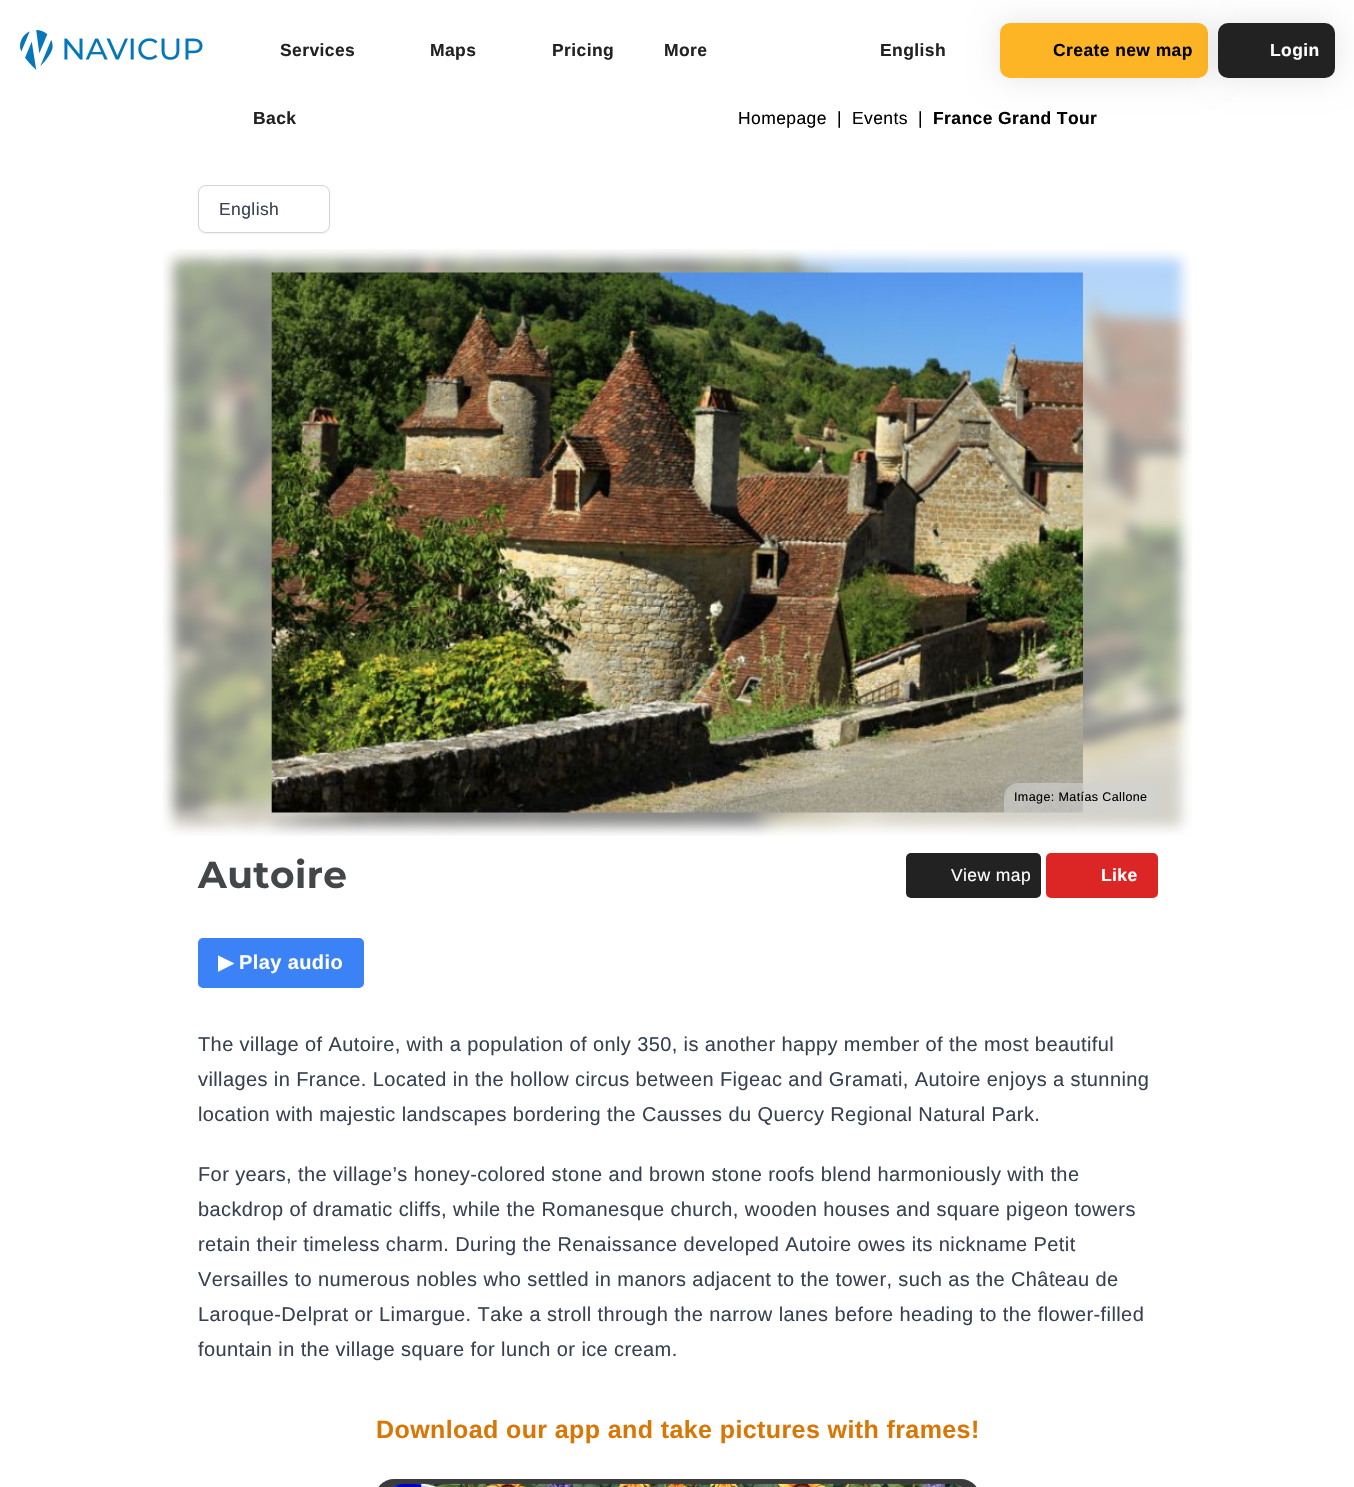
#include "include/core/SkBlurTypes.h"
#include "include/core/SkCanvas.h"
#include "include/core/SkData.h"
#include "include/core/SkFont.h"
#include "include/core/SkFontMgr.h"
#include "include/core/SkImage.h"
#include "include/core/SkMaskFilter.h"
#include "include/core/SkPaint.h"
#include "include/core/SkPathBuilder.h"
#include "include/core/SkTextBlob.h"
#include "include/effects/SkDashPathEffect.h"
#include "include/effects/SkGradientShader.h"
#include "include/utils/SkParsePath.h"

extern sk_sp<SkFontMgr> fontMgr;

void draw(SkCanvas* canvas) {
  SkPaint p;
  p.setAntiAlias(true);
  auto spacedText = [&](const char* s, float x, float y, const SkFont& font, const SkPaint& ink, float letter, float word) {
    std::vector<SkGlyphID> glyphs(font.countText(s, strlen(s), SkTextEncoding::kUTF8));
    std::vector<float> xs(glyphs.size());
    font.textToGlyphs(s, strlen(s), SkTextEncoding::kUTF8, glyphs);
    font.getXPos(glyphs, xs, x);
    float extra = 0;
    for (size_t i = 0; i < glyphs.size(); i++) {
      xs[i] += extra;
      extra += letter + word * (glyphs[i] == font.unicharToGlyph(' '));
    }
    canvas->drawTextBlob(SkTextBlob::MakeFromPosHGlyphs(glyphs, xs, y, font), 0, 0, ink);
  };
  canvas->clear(SK_ColorWHITE);
  canvas->drawImageRect(SkImages::DeferredFromEncodedData(SkData::MakeFromFileName("images/1.png")), SkRect::MakeLTRB(20, 30, 203, 70), SkSamplingOptions());
  p.setColor(SkColorSetARGB(26, 0, 0, 0));
  p.setMaskFilter(SkMaskFilter::MakeBlur(kNormal_SkBlurStyle, 15));
  canvas->drawRoundRect(SkRect::MakeLTRB(1000, 23, 1208, 78), 10, 10, p);
  p.setMaskFilter(nullptr);
  p.setColor(SkColorSetRGB(253, 181, 37));
  canvas->drawRoundRect(SkRect::MakeLTRB(1000, 23, 1208, 78), 10, 10, p);
  p.setColor(SkColorSetARGB(26, 0, 0, 0));
  p.setMaskFilter(SkMaskFilter::MakeBlur(kNormal_SkBlurStyle, 15));
  canvas->drawRoundRect(SkRect::MakeLTRB(1218, 23, 1335, 78), 10, 10, p);
  p.setMaskFilter(nullptr);
  p.setColor(SkColorSetRGB(34, 34, 34));
  canvas->drawRoundRect(SkRect::MakeLTRB(1218, 23, 1335, 78), 10, 10, p);
  p.setColor(SkColorSetARGB(13, 0, 0, 0));
  p.setMaskFilter(SkMaskFilter::MakeBlur(kNormal_SkBlurStyle, 1));
  canvas->drawRoundRect(SkRect::MakeLTRB(198, 186, 330, 234), 8, 8, p);
  p.setMaskFilter(nullptr);
  p.setColor(SK_ColorWHITE);
  canvas->drawRoundRect(SkRect::MakeLTRB(198.5f, 185.5f, 329.5f, 232.5f), 7.5f, 7.5f, p);
  p.setStyle(SkPaint::kStroke_Style);
  p.setStrokeWidth(1);
  p.setColor(SkColorSetRGB(209, 213, 219));
  canvas->drawRoundRect(SkRect::MakeLTRB(198.5f, 185.5f, 329.5f, 232.5f), 7.5f, 7.5f, p);
  canvas->drawImageRect(SkImages::DeferredFromEncodedData(SkData::MakeFromFileName("images/2.png")), SkRect::MakeLTRB(163, 249, 1192, 836), SkSamplingOptions());
  canvas->drawImageRect(SkImages::DeferredFromEncodedData(SkData::MakeFromFileName("images/3.png")), SkRect::MakeLTRB(271, 272, 1083, 813), SkSamplingOptions());
  p.setStyle(SkPaint::kFill_Style);
  p.setColor(SkColorSetARGB(156, 209, 209, 209));
  canvas->drawPath(SkPathBuilder().moveTo(1019, 783).lineTo(1158, 783).lineTo(1158, 813).lineTo(1004, 813).lineTo(1004, 798).cubicTo(1004, 789.5f, 1010.5f, 783, 1019, 783).close().detach(), p);
  p.setColor(SkColorSetRGB(34, 34, 34));
  canvas->drawRoundRect(SkRect::MakeLTRB(906, 853, 1041, 898), 5, 5, p);
  p.setColor(SkColorSetRGB(220, 38, 38));
  canvas->drawRoundRect(SkRect::MakeLTRB(1046, 853, 1158, 898), 5, 5, p);
  p.setColor(SkColorSetRGB(59, 130, 246));
  canvas->drawRoundRect(SkRect::MakeLTRB(198, 938, 364, 988), 5, 5, p);
  p.setColor(SkColorSetRGB(59, 59, 59));
  canvas->drawRoundRect(SkRect::MakeLTRB(375, 1479, 980, 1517), 30, 30, p);
  canvas->drawImageRect(SkImages::DeferredFromEncodedData(SkData::MakeFromFileName("images/4.png")), SkRect::MakeLTRB(393, 1483, 962, 1487), SkSamplingOptions());
  SkFont font1(fontMgr->matchFamilyStyle("Liberation Sans", SkFontStyle::Bold()), 17.5f);
  font1.setSubpixel(true);
  p.setColor(SkColorSetRGB(34, 34, 34));
  spacedText("Services", 280, 56, font1, p, 0.4f, 0);
  spacedText("Maps", 430, 56, font1, p, 0.4f, 0);
  spacedText("Pricing", 552, 56, font1, p, 0.4f, 0);
  spacedText("More", 664, 56, font1, p, 0.4f, 0);
  spacedText("English", 880, 56, font1, p, 0.4f, 0);
  p.setColor(SK_ColorBLACK);
  spacedText("Create new map", 1053, 56, font1, p, 0.4f, 0);
  p.setColor(SK_ColorWHITE);
  spacedText("Login", 1270, 56, font1, p, 0.4f, 0);
  p.setColor(SkColorSetRGB(34, 34, 34));
  spacedText("Back", 253, 124, font1, p, 0.4f, 0);
  SkFont font2(fontMgr->matchFamilyStyle("Liberation Sans", SkFontStyle::Normal()), 17.5f);
  font2.setSubpixel(true);
  p.setColor(SK_ColorBLACK);
  spacedText("Homepage", 738, 124, font2, p, 0.4f, 0);
  spacedText("|", 837, 124, font2, p, 0.4f, 0);
  spacedText("Events", 852, 124, font2, p, 0.4f, 0);
  spacedText("|", 918, 124, font2, p, 0.4f, 0);
  spacedText("France Grand Tour", 933, 124, font1, p, 0.4f, 0);
  p.setColor(SkColorSetRGB(55, 65, 81));
  spacedText("English", 219, 215, font2, p, 0.4f, 0);
  SkFont font3(fontMgr->matchFamilyStyle("Liberation Sans", SkFontStyle::Normal()), 12.5f);
  font3.setSubpixel(true);
  p.setColor(SK_ColorBLACK);
  spacedText("Image: Matías Callone", 1014, 801, font3, p, 0.4f, 0);
  SkFont font4(fontMgr->matchFamilyStyle("Montserrat", SkFontStyle::Bold()), 37.5f);
  font4.setSubpixel(true);
  p.setColor(SkColorSetRGB(68, 71, 74));
  spacedText("Autoire", 198, 888, font4, p, 0.4f, 0);
  p.setColor(SK_ColorWHITE);
  spacedText("View map", 951, 881, font2, p, 0.4f, 0);
  spacedText("Like", 1101, 881, font1, p, 0.4f, 0);
  SkFont font5(fontMgr->matchFamilyStyle("DejaVu Sans", SkFontStyle::Bold()), 20);
  font5.setSubpixel(true);
  spacedText("▶", 218, 969, font5, p, 0.4f, 0);
  SkFont font6(fontMgr->matchFamilyStyle("Liberation Sans", SkFontStyle::Bold()), 20);
  font6.setSubpixel(true);
  spacedText("Play audio", 239, 969, font6, p, 0.4f, 0);
  SkFont font7(fontMgr->matchFamilyStyle("Liberation Sans", SkFontStyle::Normal()), 20);
  font7.setSubpixel(true);
  p.setColor(SkColorSetRGB(55, 65, 81));
  spacedText("The village of Autoire, with a population of only 350, is another happy member of the most beautiful", 198, 1051, font7, p, 0.4f, 0);
  spacedText("villages in France. Located in the hollow circus between Figeac and Gramati, Autoire enjoys a stunning", 198, 1086, font7, p, 0.4f, 0);
  spacedText("location with majestic landscapes bordering the Causses du Quercy Regional Natural Park.", 198, 1121, font7, p, 0.4f, 0);
  spacedText("For years, the village’s honey-colored stone and brown stone roofs blend harmoniously with the", 198, 1181, font7, p, 0.4f, 0);
  spacedText("backdrop of dramatic cliffs, while the Romanesque church, wooden houses and square pigeon towers", 198, 1216, font7, p, 0.4f, 0);
  spacedText("retain their timeless charm. During the Renaissance developed Autoire owes its nickname Petit", 198, 1251, font7, p, 0.4f, 0);
  spacedText("Versailles to numerous nobles who settled in manors adjacent to the tower, such as the Château de", 198, 1286, font7, p, 0.4f, 0);
  spacedText("Laroque-Delprat or Limargue. Take a stroll through the narrow lanes before heading to the flower-filled", 198, 1321, font7, p, 0.4f, 0);
  spacedText("fountain in the village square for lunch or ice cream.", 198, 1356, font7, p, 0.4f, 0);
  SkFont font8(fontMgr->matchFamilyStyle("Liberation Sans", SkFontStyle::Bold()), 25);
  font8.setSubpixel(true);
  p.setColor(SkColorSetRGB(217, 119, 6));
  spacedText("Download our app and take pictures with frames!", 376, 1438, font8, p, 0.4f, 0);
}
